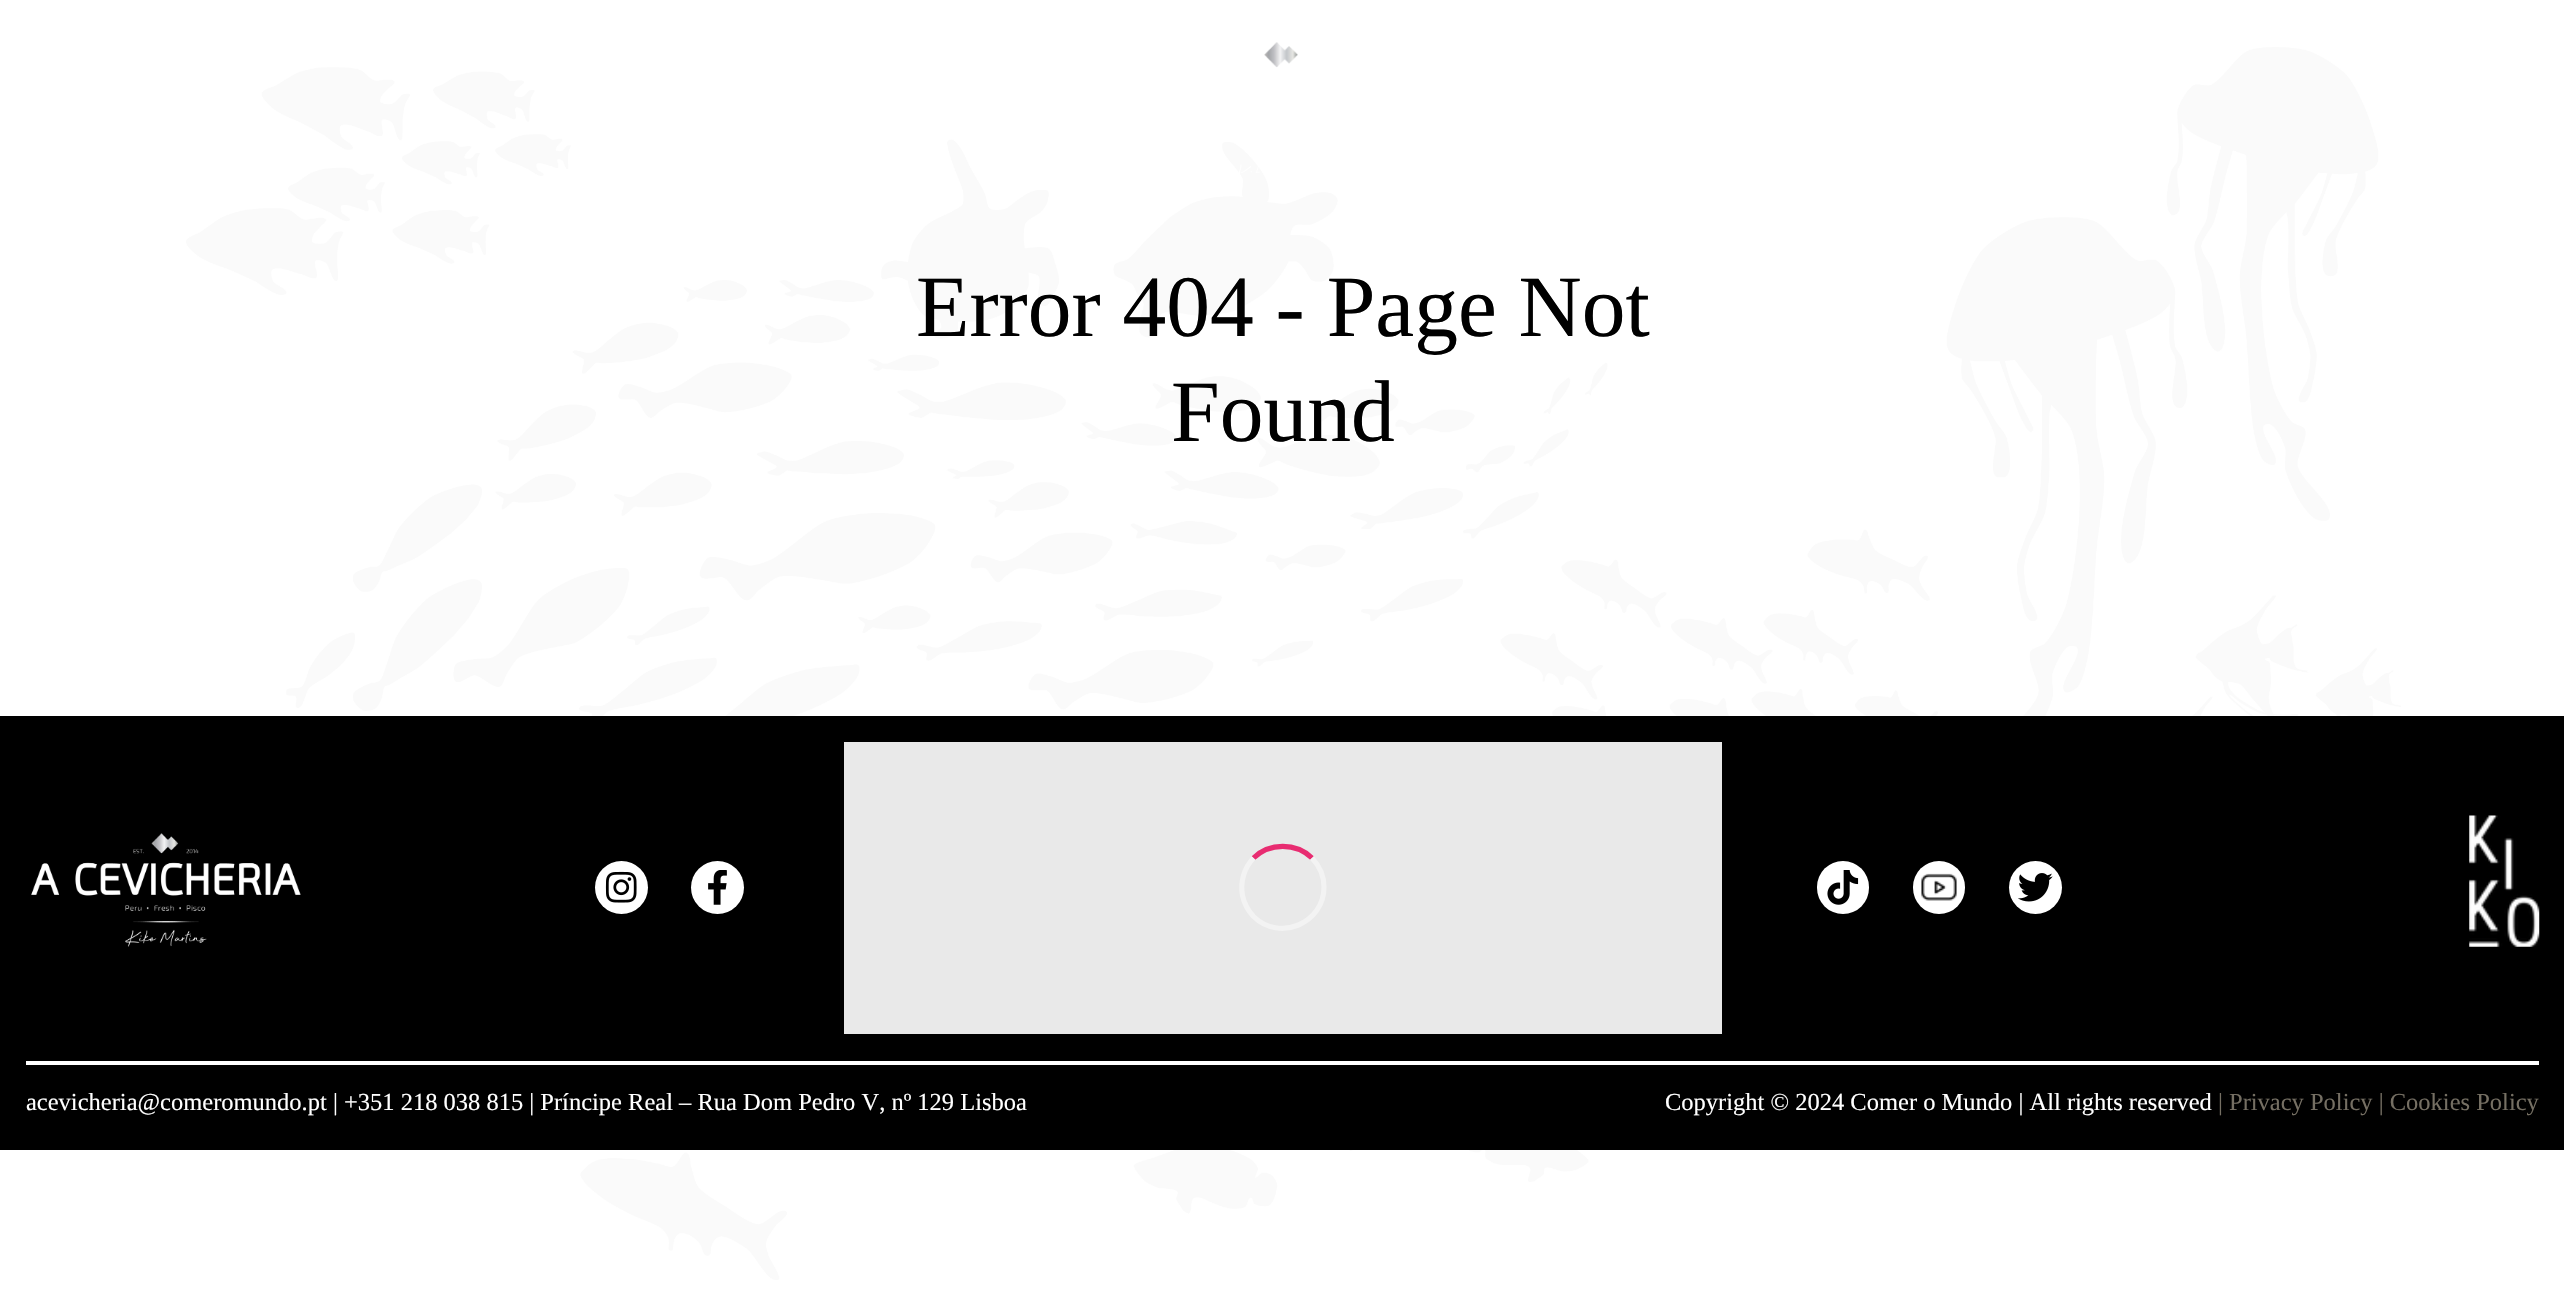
#include "include/core/SkBlurTypes.h"
#include "include/core/SkCanvas.h"
#include "include/core/SkData.h"
#include "include/core/SkFont.h"
#include "include/core/SkFontMgr.h"
#include "include/core/SkImage.h"
#include "include/core/SkMaskFilter.h"
#include "include/core/SkPaint.h"
#include "include/core/SkPathBuilder.h"
#include "include/core/SkTextBlob.h"
#include "include/effects/SkDashPathEffect.h"
#include "include/effects/SkGradientShader.h"
#include "include/utils/SkParsePath.h"

extern sk_sp<SkFontMgr> fontMgr;

void draw(SkCanvas* canvas) {
  SkPaint p;
  p.setAntiAlias(true);
  canvas->clear(SK_ColorWHITE);
  canvas->drawImageRect(SkImages::DeferredFromEncodedData(SkData::MakeFromFileName("images/1.png")), SkRect::MakeLTRB(186, 47, 2401, 1280), SkSamplingOptions());
  canvas->drawImageRect(SkImages::DeferredFromEncodedData(SkData::MakeFromFileName("images/2.png")), SkRect::MakeLTRB(1239, 42, 1298, 173), SkSamplingOptions());
  p.setColor(SK_ColorBLACK);
  canvas->drawRect(SkRect::MakeLTRB(0, 716, 2564, 1150), p);
  canvas->drawImageRect(SkImages::DeferredFromEncodedData(SkData::MakeFromFileName("images/3.png")), SkRect::MakeLTRB(31, 833, 301, 947), SkSamplingOptions());
  p.setColor(SK_ColorWHITE);
  canvas->drawCircle(621.5f, 887.5f, 26.5f, p);
  canvas->drawImageRect(SkImages::DeferredFromEncodedData(SkData::MakeFromFileName("images/4.png")), SkRect::MakeLTRB(605, 871, 637, 903), SkSamplingOptions());
  canvas->drawCircle(717.5f, 887.5f, 26.5f, p);
  canvas->drawImageRect(SkImages::DeferredFromEncodedData(SkData::MakeFromFileName("images/5.png")), SkRect::MakeLTRB(708, 870, 727, 905), SkSamplingOptions());
  p.setColor(SkColorSetRGB(233, 233, 233));
  canvas->drawRect(SkRect::MakeLTRB(844, 742, 1722, 1034), p);
  p.setStyle(SkPaint::kStroke_Style);
  p.setStrokeWidth(5.2f);
  p.setColor(SkColorSetRGB(232, 44, 113));
  canvas->drawPath(SkPathBuilder().moveTo(1253.5f, 858).cubicTo(1269.5f, 842.5f, 1296, 842.5f, 1312, 858).detach(), p);
  p.setColor(SkColorSetRGB(243, 243, 243));
  canvas->drawPath(SkPathBuilder().moveTo(1312, 858).cubicTo(1319.5f, 866, 1324, 876.5f, 1324, 887).cubicTo(1324, 923.5f, 1279.5f, 942, 1253.5f, 916.5f).cubicTo(1248, 910.5f, 1244, 903, 1242.5f, 895.5f).cubicTo(1240, 882, 1244, 868, 1253.5f, 858).detach(), p);
  p.setStyle(SkPaint::kFill_Style);
  p.setColor(SK_ColorWHITE);
  canvas->drawRoundRect(SkRect::MakeLTRB(1817, 861, 1869, 914), 26, 26, p);
  canvas->drawImageRect(SkImages::DeferredFromEncodedData(SkData::MakeFromFileName("images/6.png")), SkRect::MakeLTRB(1827, 870, 1859, 905), SkSamplingOptions());
  canvas->drawRoundRect(SkRect::MakeLTRB(1913, 861, 1965, 914), 26, 26, p);
  canvas->drawImageRect(SkImages::DeferredFromEncodedData(SkData::MakeFromFileName("images/7.png")), SkRect::MakeLTRB(1921, 873, 1957, 901), SkSamplingOptions());
  canvas->drawCircle(2035.5f, 887.5f, 26.5f, p);
  canvas->drawImageRect(SkImages::DeferredFromEncodedData(SkData::MakeFromFileName("images/8.png")), SkRect::MakeLTRB(2018, 873, 2053, 902), SkSamplingOptions());
  canvas->drawImageRect(SkImages::DeferredFromEncodedData(SkData::MakeFromFileName("images/9.png")), SkRect::MakeLTRB(2469, 815, 2540, 947), SkSamplingOptions());
  canvas->drawRect(SkRect::MakeLTRB(26, 1061, 2539, 1065), p);
  SkFont font1(fontMgr->matchFamilyStyle("Liberation Serif", SkFontStyle::Normal()), 87.5f);
  font1.setSubpixel(true);
  p.setColor(SK_ColorBLACK);
  canvas->drawString("Error 404 - Page Not", 916, 336, font1, p);
  canvas->drawString("Found", 1171, 441, font1, p);
  SkFont font2(fontMgr->matchFamilyStyle("Liberation Serif", SkFontStyle::Normal()), 24.5f);
  font2.setSubpixel(true);
  p.setColor(SK_ColorWHITE);
  canvas->drawString("acevicheria@comeromundo.pt | +351 218 038 815 | Príncipe Real – Rua Dom Pedro V, nº 129 Lisboa", 26, 1110, font2, p);
  canvas->drawString("Copyright © 2024 Comer o Mundo | All rights reserved", 1665, 1110, font2, p);
  p.setColor(SkColorSetRGB(117, 111, 99));
  canvas->drawString("| Privacy Policy | Cookies Policy", 2218, 1110, font2, p);
}
